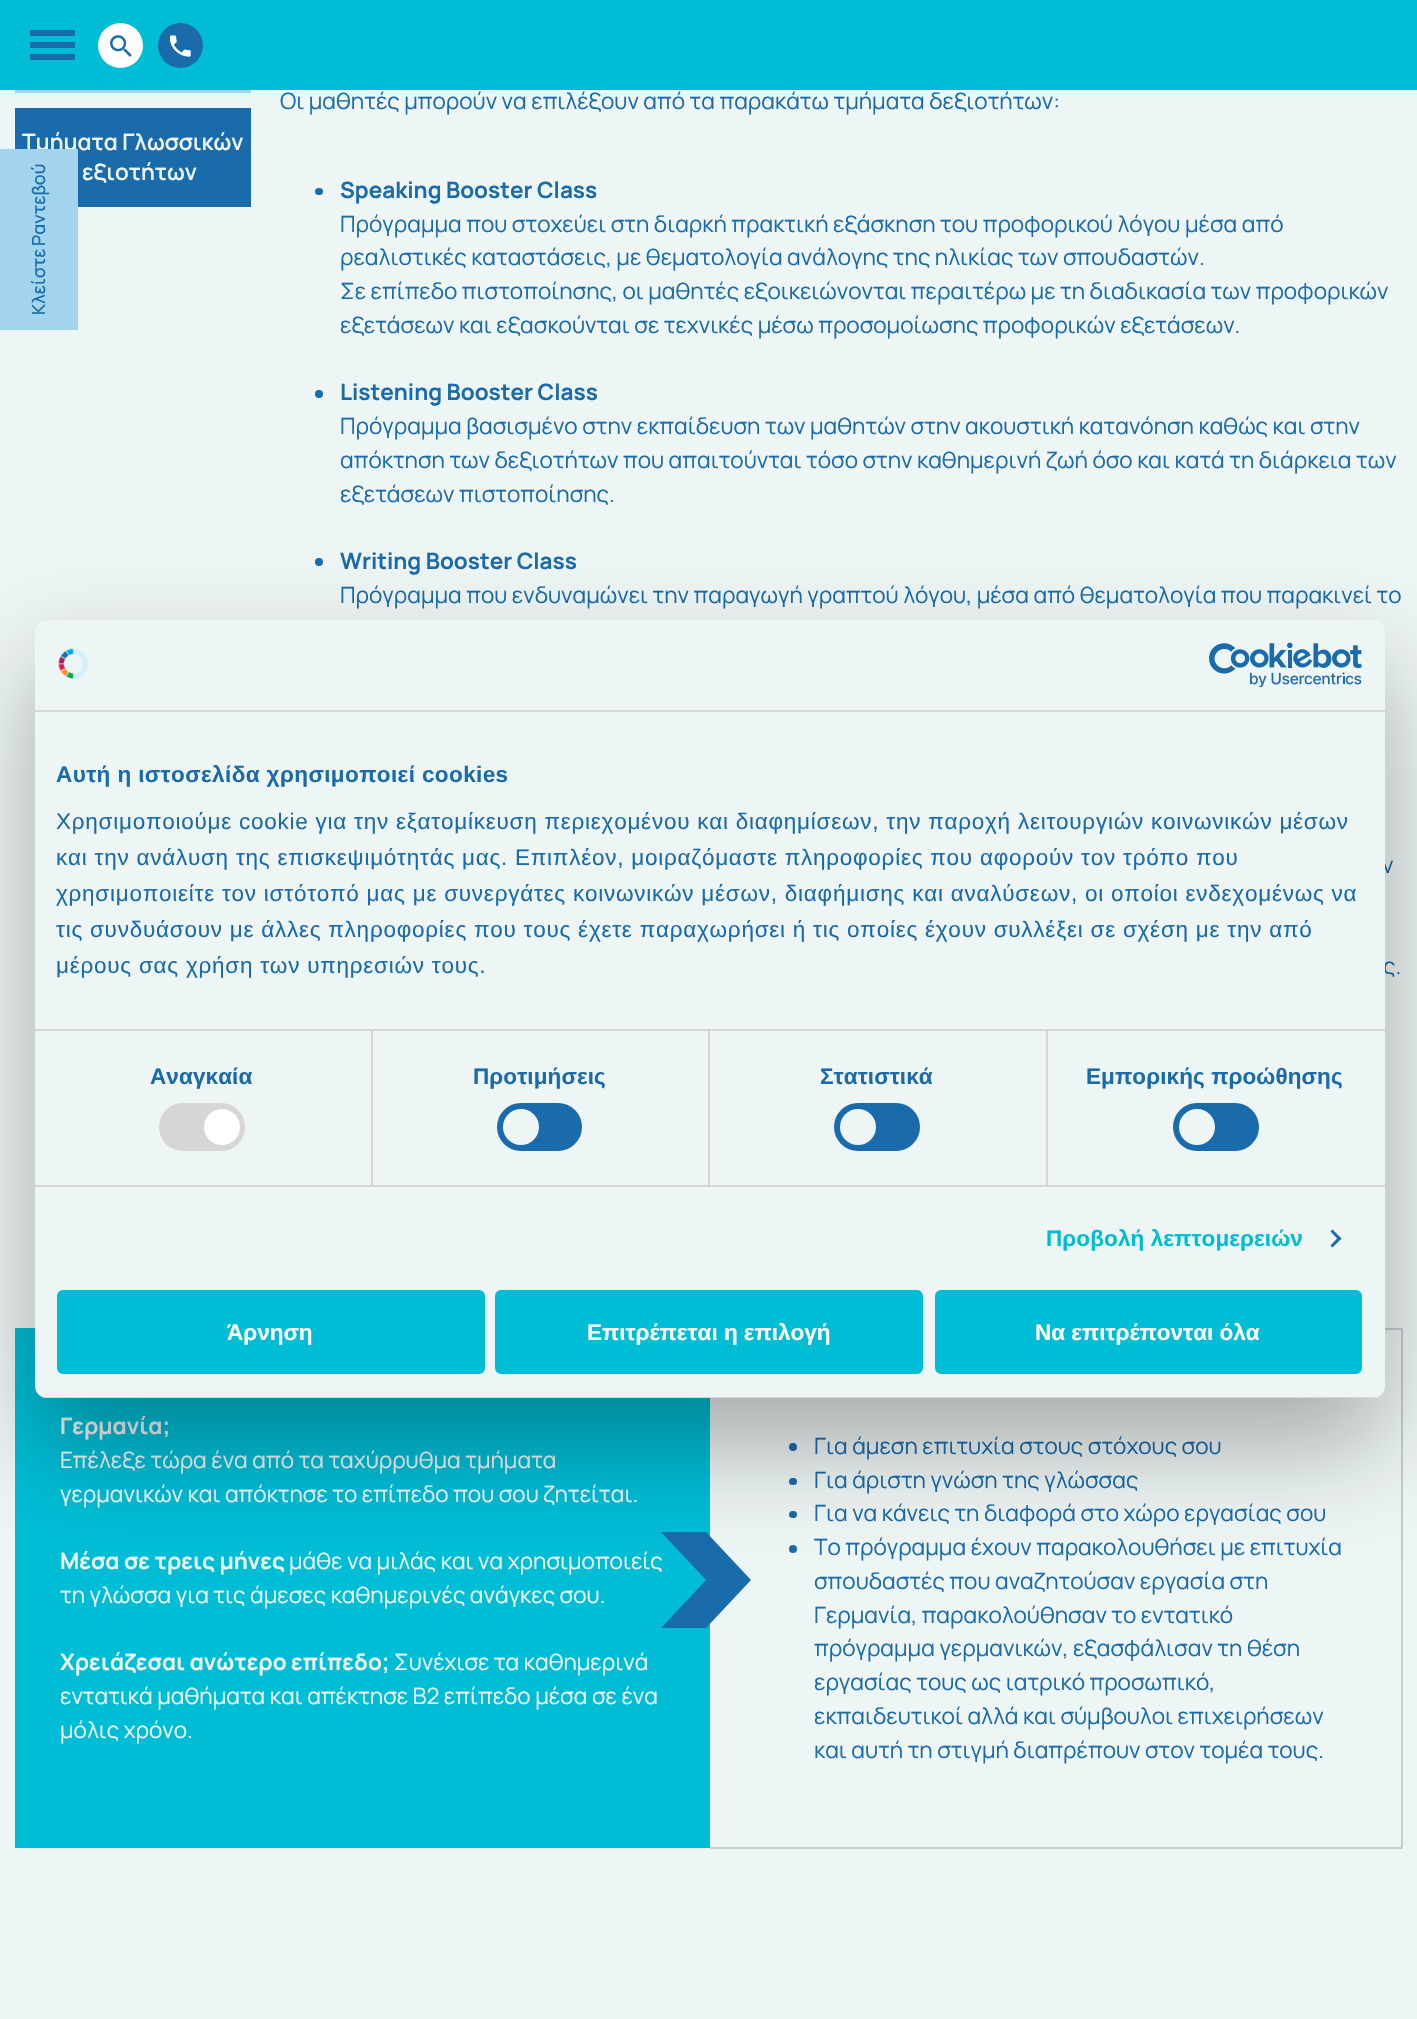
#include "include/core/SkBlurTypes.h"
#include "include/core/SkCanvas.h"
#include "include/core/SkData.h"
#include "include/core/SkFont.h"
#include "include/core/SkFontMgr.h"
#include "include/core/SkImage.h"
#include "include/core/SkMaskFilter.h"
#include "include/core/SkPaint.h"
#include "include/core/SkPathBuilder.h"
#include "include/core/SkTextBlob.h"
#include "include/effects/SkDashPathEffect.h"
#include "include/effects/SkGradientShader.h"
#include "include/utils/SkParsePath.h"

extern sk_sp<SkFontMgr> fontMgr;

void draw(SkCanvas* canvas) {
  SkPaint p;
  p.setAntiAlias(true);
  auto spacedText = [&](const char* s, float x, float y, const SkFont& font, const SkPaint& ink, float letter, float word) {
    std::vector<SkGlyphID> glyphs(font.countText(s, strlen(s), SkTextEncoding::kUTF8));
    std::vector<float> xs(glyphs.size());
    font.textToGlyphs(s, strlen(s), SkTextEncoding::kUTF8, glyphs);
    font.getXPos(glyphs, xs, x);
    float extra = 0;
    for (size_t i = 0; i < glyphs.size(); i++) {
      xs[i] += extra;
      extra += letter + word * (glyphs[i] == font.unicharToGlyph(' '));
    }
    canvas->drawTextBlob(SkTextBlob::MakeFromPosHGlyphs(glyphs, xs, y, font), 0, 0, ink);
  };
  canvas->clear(SkColorSetRGB(238, 245, 245));
  p.setColor(SkColorSetRGB(162, 213, 237));
  canvas->drawRect(SkRect::MakeLTRB(15, 90, 251, 93), p);
  p.setColor(SkColorSetRGB(25, 107, 171));
  canvas->drawRect(SkRect::MakeLTRB(15, 108, 251, 207), p);
  canvas->drawRoundRect(SkRect::MakeLTRB(315, 188, 323, 195), 3.5f, 3.5f, p);
  canvas->drawCircle(319, 394, 4, p);
  canvas->drawCircle(319, 562, 4, p);
  p.setColor(SkColorSetRGB(0, 189, 214));
  canvas->drawRect(SkRect::MakeLTRB(15, 1328, 710, 1848), p);
  p.setColor(SkColorSetRGB(25, 107, 171));
  canvas->drawPath(SkPathBuilder().moveTo(661, 1628).lineTo(706, 1628).lineTo(751, 1580).lineTo(706, 1580).close().detach(), p);
  p.setColor(SkColorSetRGB(197, 205, 206));
  canvas->drawRect(SkRect::MakeLTRB(1385, 1328, 1403, 1330), p);
  canvas->drawRect(SkRect::MakeLTRB(1401, 1328, 1403, 1848), p);
  canvas->drawRect(SkRect::MakeLTRB(710, 1847, 1403, 1849), p);
  p.setColor(SkColorSetRGB(25, 107, 171));
  canvas->drawCircle(793, 1447, 4, p);
  canvas->drawRoundRect(SkRect::MakeLTRB(789, 1478, 797, 1485), 3.5f, 3.5f, p);
  canvas->drawRoundRect(SkRect::MakeLTRB(789, 1511, 797, 1518), 3.5f, 3.5f, p);
  canvas->drawCircle(793, 1549, 4, p);
  p.setColor(SkColorSetRGB(0, 189, 214));
  canvas->drawRect(SkRect::MakeLTRB(0, 0, 1417, 90), p);
  p.setColor(SkColorSetRGB(25, 107, 171));
  canvas->drawRect(SkRect::MakeLTRB(30, 30, 75, 36), p);
  canvas->drawRect(SkRect::MakeLTRB(30, 42, 75, 48), p);
  canvas->drawRect(SkRect::MakeLTRB(30, 54, 75, 60), p);
  p.setColor(SK_ColorWHITE);
  canvas->drawCircle(120.5f, 45.5f, 22.5f, p);
  canvas->drawImageRect(SkImages::DeferredFromEncodedData(SkData::MakeFromFileName("images/1.png")), SkRect::MakeLTRB(110, 35, 132, 57), SkSamplingOptions());
  p.setColor(SkColorSetRGB(25, 107, 171));
  canvas->drawCircle(180.5f, 45.5f, 22.5f, p);
  canvas->drawImageRect(SkImages::DeferredFromEncodedData(SkData::MakeFromFileName("images/2.png")), SkRect::MakeLTRB(170, 35, 191, 57), SkSamplingOptions());
  SkFont font1(fontMgr->matchFamilyStyle("Manrope", SkFontStyle(600, SkFontStyle::kNormal_Width, SkFontStyle::kUpright_Slant)), 22.5f);
  font1.setSubpixel(true);
  p.setColor(SkColorSetRGB(238, 245, 245));
  canvas->drawString("Τμήματα Γλωσσικών", 22, 150, font1, p);
  canvas->drawString("εξιοτήτων", 82, 180, font1, p);
  SkFont font2(fontMgr->matchFamilyStyle("Manrope", SkFontStyle::Normal()), 22.5f);
  font2.setSubpixel(true);
  p.setColor(SkColorSetRGB(25, 107, 171));
  canvas->drawString("Οι μαθητές μπορούν να επιλέξουν από τα παρακάτω τμήματα δεξιοτήτων:", 280, 109, font2, p);
  SkFont font3(fontMgr->matchFamilyStyle("Manrope", SkFontStyle::Bold()), 22.5f);
  font3.setSubpixel(true);
  canvas->drawString("Speaking Booster Class", 340, 198, font3, p);
  canvas->drawString("Πρόγραμμα που στοχεύει στη διαρκή πρακτική εξάσκηση του προφορικού λόγου μέσα από", 340, 232, font2, p);
  canvas->drawString("ρεαλιστικές καταστάσεις, με θεματολογία ανάλογης της ηλικίας των σπουδαστών.", 340, 265, font2, p);
  canvas->drawString("Σε επίπεδο πιστοποίησης, οι μαθητές εξοικειώνονται περαιτέρω με τη διαδικασία των προφορικών", 340, 299, font2, p);
  canvas->drawString("εξετάσεων και εξασκούνται σε τεχνικές μέσω προσομοίωσης προφορικών εξετάσεων.", 340, 333, font2, p);
  canvas->drawString("Listening Booster Class", 340, 400, font3, p);
  canvas->drawString("Πρόγραμμα βασισμένο στην εκπαίδευση των μαθητών στην ακουστική κατανόηση καθώς και στην", 340, 434, font2, p);
  canvas->drawString("απόκτηση των δεξιοτήτων που απαιτούνται τόσο στην καθημερινή ζωή όσο και κατά τη διάρκεια των", 340, 468, font2, p);
  canvas->drawString("εξετάσεων πιστοποίησης.", 340, 502, font2, p);
  canvas->drawString("Writing Booster Class", 340, 569, font3, p);
  canvas->drawString("Πρόγραμμα που ενδυναμώνει την παραγωγή γραπτού λόγου, μέσα από θεματολογία που παρακινεί το", 340, 603, font2, p);
  canvas->drawString("ν", 1382, 873, font2, p);
  canvas->drawString("ς.", 1383, 974, font2, p);
  p.setColor(SkColorSetRGB(238, 245, 245));
  canvas->drawString("Γερμανία;", 60, 1434, font3, p);
  canvas->drawString("Επέλεξε τώρα ένα από τα ταχύρρυθμα τμήματα", 60, 1468, font2, p);
  canvas->drawString("γερμανικών και απόκτησε το επίπεδο που σου ζητείται.", 60, 1502, font2, p);
  canvas->drawString("Μέσα σε τρεις μήνες", 60, 1569, font3, p);
  canvas->drawString("μάθε να μιλάς και να χρησιμοποιείς", 289, 1569, font2, p);
  canvas->drawString("τη γλώσσα για τις άμεσες καθημερινές ανάγκες σου.", 60, 1603, font2, p);
  canvas->drawString("Χρειάζεσαι ανώτερο επίπεδο;", 60, 1670, font3, p);
  canvas->drawString("Συνέχισε τα καθημερινά", 394, 1670, font2, p);
  canvas->drawString("εντατικά μαθήματα και απέκτησε Β2 επίπεδο μέσα σε ένα", 60, 1704, font2, p);
  canvas->drawString("μόλις χρόνο.", 60, 1738, font2, p);
  p.setColor(SkColorSetRGB(25, 107, 171));
  canvas->drawPath(SkPathBuilder().moveTo(661, 1532).lineTo(706, 1532).lineTo(751, 1580).lineTo(706, 1580).close().detach(), p);
  canvas->drawString("Για άμεση επιτυχία στους στόχους σου", 814, 1454, font2, p);
  canvas->drawString("Για άριστη γνώση της γλώσσας", 814, 1488, font2, p);
  canvas->drawString("Για να κάνεις τη διαφορά στο χώρο εργασίας σου", 814, 1521, font2, p);
  canvas->drawString("Το πρόγραμμα έχουν παρακολουθήσει με επιτυχία", 814, 1555, font2, p);
  canvas->drawString("σπουδαστές που αναζητούσαν εργασία στη", 814, 1589, font2, p);
  canvas->drawString("Γερμανία, παρακολούθησαν το εντατικό", 814, 1623, font2, p);
  canvas->drawString("πρόγραμμα γερμανικών, εξασφάλισαν τη θέση", 814, 1656, font2, p);
  canvas->drawString("εργασίας τους ως ιατρικό προσωπικό,", 814, 1690, font2, p);
  canvas->drawString("εκπαιδευτικοί αλλά και σύμβουλοι επιχειρήσεων", 814, 1724, font2, p);
  canvas->drawString("και αυτή τη στιγμή διαπρέπουν στον τομέα τους.", 814, 1758, font2, p);
  p.setColor(SkColorSetRGB(162, 213, 237));
  canvas->drawRect(SkRect::MakeLTRB(0, 149, 78, 330), p);
  SkFont font4(fontMgr->matchFamilyStyle("Manrope", SkFontStyle(500, SkFontStyle::kNormal_Width, SkFontStyle::kUpright_Slant)), 18);
  font4.setSubpixel(true);
  p.setColor(SkColorSetRGB(25, 107, 171));
  canvas->save();
  canvas->rotate(-90, 45, 315);
  spacedText("Κλείστε Ραντεβού", 45, 315, font4, p, 0, -1);
  canvas->restore();
  p.setColor(SkColorSetARGB(77, 0, 0, 0));
  p.setMaskFilter(SkMaskFilter::MakeBlur(kNormal_SkBlurStyle, 51));
  canvas->drawRoundRect(SkRect::MakeLTRB(35, 668, 1385, 1446), 12, 12, p);
  p.setMaskFilter(nullptr);
  p.setColor(SkColorSetRGB(238, 245, 245));
  canvas->drawRoundRect(SkRect::MakeLTRB(35, 620, 1385, 1398), 12, 12, p);
  p.setColor(SkColorSetRGB(214, 214, 214));
  canvas->drawRect(SkRect::MakeLTRB(35, 710, 1385, 712), p);
  canvas->drawImageRect(SkImages::DeferredFromEncodedData(SkData::MakeFromFileName("images/3.png")), SkRect::MakeLTRB(58, 648, 89, 681), SkSamplingOptions());
  canvas->drawImageRect(SkImages::DeferredFromEncodedData(SkData::MakeFromFileName("images/4.png")), SkRect::MakeLTRB(1209, 642, 1362, 687), SkSamplingOptions());
  canvas->drawRect(SkRect::MakeLTRB(35, 1029, 1385, 1031), p);
  SkFont font5(fontMgr->matchFamilyStyle("Liberation Sans", SkFontStyle::Bold()), 22.5f);
  font5.setSubpixel(true);
  p.setColor(SkColorSetRGB(25, 107, 171));
  spacedText("Αυτή η ιστοσελίδα χρησιμοποιεί cookies", 56, 782, font5, p, 0.4f, 0);
  SkFont font6(fontMgr->matchFamilyStyle("Liberation Sans", SkFontStyle::Normal()), 22.5f);
  font6.setSubpixel(true);
  spacedText("Χρησιμοποιούμε cookie για την εξατομίκευση περιεχομένου και διαφημίσεων, την παροχή λειτουργιών κοινωνικών μέσων", 56, 829, font6, p, 0.75f, 0);
  spacedText("και την ανάλυση της επισκεψιμότητάς μας. Επιπλέον, μοιραζόμαστε πληροφορίες που αφορούν τον τρόπο που", 56, 865, font6, p, 0.75f, 0);
  spacedText("χρησιμοποιείτε τον ιστότοπό μας με συνεργάτες κοινωνικών μέσων, διαφήμισης και αναλύσεων, οι οποίοι ενδεχομένως να", 56, 901, font6, p, 0.75f, 0);
  spacedText("τις συνδυάσουν με άλλες πληροφορίες που τους έχετε παραχωρήσει ή τις οποίες έχουν συλλέξει σε σχέση με την από", 56, 937, font6, p, 0.75f, 0);
  spacedText("μέρους σας χρήση των υπηρεσιών τους.", 56, 973, font6, p, 0.75f, 0);
  p.setColor(SkColorSetRGB(214, 214, 214));
  canvas->drawRect(SkRect::MakeLTRB(35, 1185, 1385, 1187), p);
  canvas->drawRect(SkRect::MakeLTRB(371, 1031, 373, 1185), p);
  p.setColor(SkColorSetRGB(25, 107, 171));
  spacedText("Αναγκαία", 150, 1084, font5, p, 0.1f, 0);
  p.setColor(SkColorSetRGB(214, 214, 214));
  canvas->drawRoundRect(SkRect::MakeLTRB(159, 1103, 245, 1151), 24, 24, p);
  p.setColor(SK_ColorWHITE);
  canvas->drawCircle(222, 1127, 18, p);
  p.setColor(SkColorSetRGB(214, 214, 214));
  canvas->drawRect(SkRect::MakeLTRB(708, 1031, 710, 1185), p);
  p.setColor(SkColorSetRGB(25, 107, 171));
  spacedText("Προτιμήσεις", 473, 1084, font5, p, 0.1f, 0);
  canvas->drawRoundRect(SkRect::MakeLTRB(497, 1103, 582, 1151), 24, 24, p);
  p.setColor(SkColorSetRGB(238, 245, 245));
  canvas->drawCircle(521, 1127, 18, p);
  p.setColor(SkColorSetRGB(214, 214, 214));
  canvas->drawRect(SkRect::MakeLTRB(1046, 1031, 1048, 1185), p);
  p.setColor(SkColorSetRGB(25, 107, 171));
  spacedText("Στατιστικά", 820, 1084, font5, p, 0.1f, 0);
  canvas->drawRoundRect(SkRect::MakeLTRB(834, 1103, 920, 1151), 24, 24, p);
  p.setColor(SkColorSetRGB(238, 245, 245));
  canvas->drawCircle(858, 1127, 18, p);
  p.setColor(SkColorSetRGB(25, 107, 171));
  spacedText("Εμπορικής προώθησης", 1086, 1084, font5, p, 0.1f, 0);
  canvas->drawRoundRect(SkRect::MakeLTRB(1173, 1103, 1259, 1151), 24, 24, p);
  p.setColor(SkColorSetRGB(238, 245, 245));
  canvas->drawCircle(1197, 1127, 18, p);
  p.setColor(SkColorSetRGB(0, 189, 214));
  spacedText("Προβολή λεπτομερειών", 1046, 1246, font5, p, 0.1f, 0);
  p.setColor(SkColorSetRGB(25, 107, 171));
  canvas->drawPath(SkPathBuilder().moveTo(1332.5f, 1229.5f).lineTo(1341.5f, 1238.5f).lineTo(1339, 1240.5f).lineTo(1330.5f, 1231.5f).close().detach(), p);
  canvas->drawPath(SkPathBuilder().moveTo(1339, 1236.5f).lineTo(1341.5f, 1238.5f).lineTo(1332.5f, 1247.5f).lineTo(1330.5f, 1245.5f).close().detach(), p);
  canvas->save();
  canvas->clipPath(SkPathBuilder().moveTo(47, 620).lineTo(1373, 620).cubicTo(1379.5f, 620, 1385, 625.5f, 1385, 632).lineTo(1385, 1386).cubicTo(1385, 1392.5f, 1379.5f, 1398, 1373, 1398).lineTo(47, 1398).cubicTo(40.5f, 1398, 35, 1392.5f, 35, 1386).lineTo(35, 632).cubicTo(35, 625.5f, 40.5f, 620, 47, 620).close().detach(), true);
  p.setColor(SkColorSetRGB(214, 214, 214));
  canvas->drawRect(SkRect::MakeLTRB(35, 1397, 1385, 1398), p);
  canvas->restore();
  p.setColor(SkColorSetRGB(0, 189, 214));
  canvas->drawRoundRect(SkRect::MakeLTRB(58.5f, 1291.5f, 483.5f, 1372.5f), 4.5f, 4.5f, p);
  p.setStyle(SkPaint::kStroke_Style);
  p.setStrokeWidth(3);
  canvas->drawRoundRect(SkRect::MakeLTRB(58.5f, 1291.5f, 483.5f, 1372.5f), 4.5f, 4.5f, p);
  p.setStyle(SkPaint::kFill_Style);
  p.setColor(SK_ColorWHITE);
  canvas->drawString("Άρνηση", 227, 1340, font5, p);
  p.setColor(SkColorSetRGB(0, 189, 214));
  canvas->drawRoundRect(SkRect::MakeLTRB(496.5f, 1291.5f, 921.5f, 1372.5f), 4.5f, 4.5f, p);
  p.setStyle(SkPaint::kStroke_Style);
  canvas->drawRoundRect(SkRect::MakeLTRB(496.5f, 1291.5f, 921.5f, 1372.5f), 4.5f, 4.5f, p);
  p.setStyle(SkPaint::kFill_Style);
  p.setColor(SK_ColorWHITE);
  canvas->drawString("Επιτρέπεται η επιλογή", 587, 1340, font5, p);
  p.setColor(SkColorSetRGB(0, 189, 214));
  canvas->drawRoundRect(SkRect::MakeLTRB(936.5f, 1291.5f, 1360.5f, 1372.5f), 4.5f, 4.5f, p);
  p.setStyle(SkPaint::kStroke_Style);
  canvas->drawRoundRect(SkRect::MakeLTRB(936.5f, 1291.5f, 1360.5f, 1372.5f), 4.5f, 4.5f, p);
  p.setStyle(SkPaint::kFill_Style);
  p.setColor(SK_ColorWHITE);
  canvas->drawString("Να επιτρέπονται όλα", 1035, 1340, font5, p);
}
